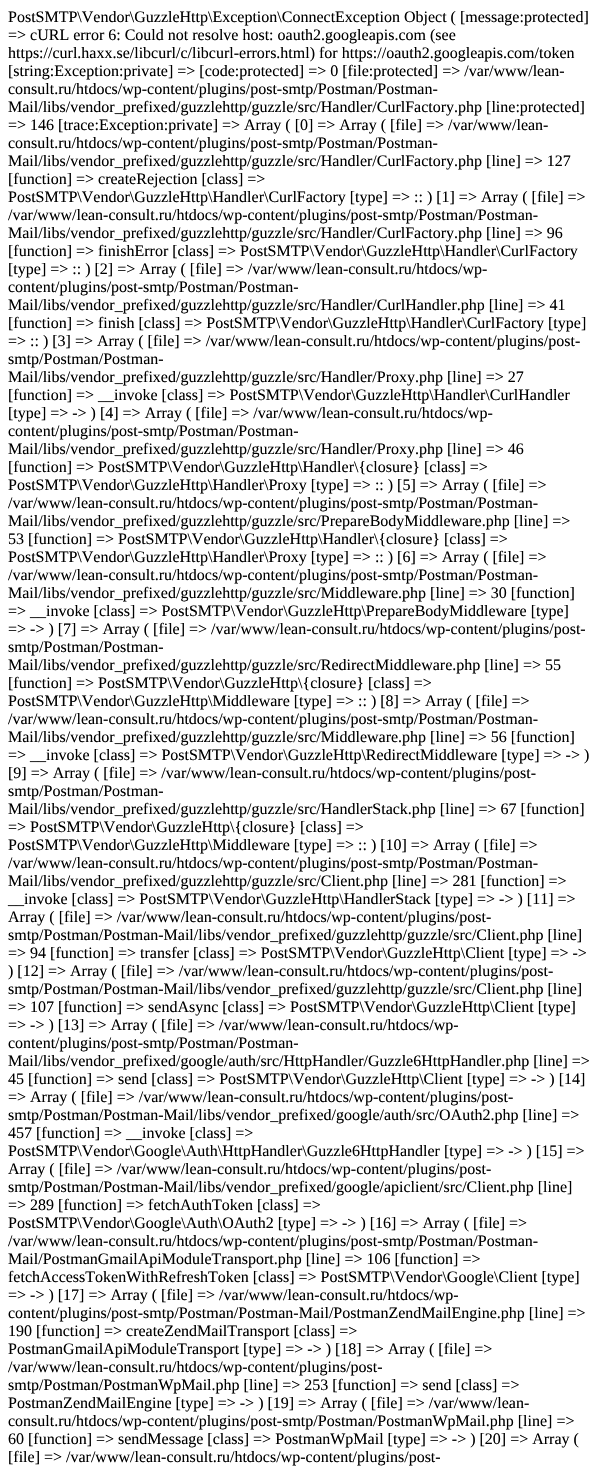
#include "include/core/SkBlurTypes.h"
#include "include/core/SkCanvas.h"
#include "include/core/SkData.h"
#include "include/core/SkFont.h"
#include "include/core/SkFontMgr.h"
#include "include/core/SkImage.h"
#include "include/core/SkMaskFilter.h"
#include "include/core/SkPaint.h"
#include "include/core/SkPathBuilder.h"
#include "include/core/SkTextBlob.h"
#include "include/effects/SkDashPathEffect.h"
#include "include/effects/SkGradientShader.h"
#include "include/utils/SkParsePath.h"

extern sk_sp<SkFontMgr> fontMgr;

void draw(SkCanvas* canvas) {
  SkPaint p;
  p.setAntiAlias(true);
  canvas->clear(SK_ColorWHITE);
  SkFont font1(fontMgr->matchFamilyStyle("Liberation Serif", SkFontStyle::Normal()), 16);
  font1.setSubpixel(true);
  p.setColor(SK_ColorBLACK);
  canvas->drawString("PostSMTP\\Vendor\\GuzzleHttp\\Exception\\ConnectException Object ( [message:protected]", 8, 22, font1, p);
  canvas->drawString("=> cURL error 6: Could not resolve host: oauth2.googleapis.com (see", 8, 40, font1, p);
  canvas->drawString("https://curl.haxx.se/libcurl/c/libcurl-errors.html) for https://oauth2.googleapis.com/token", 8, 58, font1, p);
  canvas->drawString("[string:Exception:private] => [code:protected] => 0 [file:protected] => /var/www/lean-", 8, 76, font1, p);
  canvas->drawString("consult.ru/htdocs/wp-content/plugins/post-smtp/Postman/Postman-", 8, 94, font1, p);
  canvas->drawString("Mail/libs/vendor_prefixed/guzzlehttp/guzzle/src/Handler/CurlFactory.php [line:protected]", 8, 112, font1, p);
  canvas->drawString("=> 146 [trace:Exception:private] => Array ( [0] => Array ( [file] => /var/www/lean-", 8, 130, font1, p);
  canvas->drawString("consult.ru/htdocs/wp-content/plugins/post-smtp/Postman/Postman-", 8, 148, font1, p);
  canvas->drawString("Mail/libs/vendor_prefixed/guzzlehttp/guzzle/src/Handler/CurlFactory.php [line] => 127", 8, 166, font1, p);
  canvas->drawString("[function] => createRejection [class] =>", 8, 184, font1, p);
  canvas->drawString("PostSMTP\\Vendor\\GuzzleHttp\\Handler\\CurlFactory [type] => :: ) [1] => Array ( [file] =>", 8, 202, font1, p);
  canvas->drawString("/var/www/lean-consult.ru/htdocs/wp-content/plugins/post-smtp/Postman/Postman-", 8, 220, font1, p);
  canvas->drawString("Mail/libs/vendor_prefixed/guzzlehttp/guzzle/src/Handler/CurlFactory.php [line] => 96", 8, 238, font1, p);
  canvas->drawString("[function] => finishError [class] => PostSMTP\\Vendor\\GuzzleHttp\\Handler\\CurlFactory", 8, 256, font1, p);
  canvas->drawString("[type] => :: ) [2] => Array ( [file] => /var/www/lean-consult.ru/htdocs/wp-", 8, 274, font1, p);
  canvas->drawString("content/plugins/post-smtp/Postman/Postman-", 8, 292, font1, p);
  canvas->drawString("Mail/libs/vendor_prefixed/guzzlehttp/guzzle/src/Handler/CurlHandler.php [line] => 41", 8, 310, font1, p);
  canvas->drawString("[function] => finish [class] => PostSMTP\\Vendor\\GuzzleHttp\\Handler\\CurlFactory [type]", 8, 328, font1, p);
  canvas->drawString("=> :: ) [3] => Array ( [file] => /var/www/lean-consult.ru/htdocs/wp-content/plugins/post-", 8, 346, font1, p);
  canvas->drawString("smtp/Postman/Postman-", 8, 364, font1, p);
  canvas->drawString("Mail/libs/vendor_prefixed/guzzlehttp/guzzle/src/Handler/Proxy.php [line] => 27", 8, 382, font1, p);
  canvas->drawString("[function] => __invoke [class] => PostSMTP\\Vendor\\GuzzleHttp\\Handler\\CurlHandler", 8, 400, font1, p);
  canvas->drawString("[type] => -> ) [4] => Array ( [file] => /var/www/lean-consult.ru/htdocs/wp-", 8, 418, font1, p);
  canvas->drawString("content/plugins/post-smtp/Postman/Postman-", 8, 436, font1, p);
  canvas->drawString("Mail/libs/vendor_prefixed/guzzlehttp/guzzle/src/Handler/Proxy.php [line] => 46", 8, 454, font1, p);
  canvas->drawString("[function] => PostSMTP\\Vendor\\GuzzleHttp\\Handler\\{closure} [class] =>", 8, 472, font1, p);
  canvas->drawString("PostSMTP\\Vendor\\GuzzleHttp\\Handler\\Proxy [type] => :: ) [5] => Array ( [file] =>", 8, 490, font1, p);
  canvas->drawString("/var/www/lean-consult.ru/htdocs/wp-content/plugins/post-smtp/Postman/Postman-", 8, 508, font1, p);
  canvas->drawString("Mail/libs/vendor_prefixed/guzzlehttp/guzzle/src/PrepareBodyMiddleware.php [line] =>", 8, 526, font1, p);
  canvas->drawString("53 [function] => PostSMTP\\Vendor\\GuzzleHttp\\Handler\\{closure} [class] =>", 8, 544, font1, p);
  canvas->drawString("PostSMTP\\Vendor\\GuzzleHttp\\Handler\\Proxy [type] => :: ) [6] => Array ( [file] =>", 8, 562, font1, p);
  canvas->drawString("/var/www/lean-consult.ru/htdocs/wp-content/plugins/post-smtp/Postman/Postman-", 8, 580, font1, p);
  canvas->drawString("Mail/libs/vendor_prefixed/guzzlehttp/guzzle/src/Middleware.php [line] => 30 [function]", 8, 598, font1, p);
  canvas->drawString("=> __invoke [class] => PostSMTP\\Vendor\\GuzzleHttp\\PrepareBodyMiddleware [type]", 8, 616, font1, p);
  canvas->drawString("=> -> ) [7] => Array ( [file] => /var/www/lean-consult.ru/htdocs/wp-content/plugins/post-", 8, 634, font1, p);
  canvas->drawString("smtp/Postman/Postman-", 8, 652, font1, p);
  canvas->drawString("Mail/libs/vendor_prefixed/guzzlehttp/guzzle/src/RedirectMiddleware.php [line] => 55", 8, 670, font1, p);
  canvas->drawString("[function] => PostSMTP\\Vendor\\GuzzleHttp\\{closure} [class] =>", 8, 688, font1, p);
  canvas->drawString("PostSMTP\\Vendor\\GuzzleHttp\\Middleware [type] => :: ) [8] => Array ( [file] =>", 8, 706, font1, p);
  canvas->drawString("/var/www/lean-consult.ru/htdocs/wp-content/plugins/post-smtp/Postman/Postman-", 8, 724, font1, p);
  canvas->drawString("Mail/libs/vendor_prefixed/guzzlehttp/guzzle/src/Middleware.php [line] => 56 [function]", 8, 742, font1, p);
  canvas->drawString("=> __invoke [class] => PostSMTP\\Vendor\\GuzzleHttp\\RedirectMiddleware [type] => -> )", 8, 760, font1, p);
  canvas->drawString("[9] => Array ( [file] => /var/www/lean-consult.ru/htdocs/wp-content/plugins/post-", 8, 778, font1, p);
  canvas->drawString("smtp/Postman/Postman-", 8, 796, font1, p);
  canvas->drawString("Mail/libs/vendor_prefixed/guzzlehttp/guzzle/src/HandlerStack.php [line] => 67 [function]", 8, 814, font1, p);
  canvas->drawString("=> PostSMTP\\Vendor\\GuzzleHttp\\{closure} [class] =>", 8, 832, font1, p);
  canvas->drawString("PostSMTP\\Vendor\\GuzzleHttp\\Middleware [type] => :: ) [10] => Array ( [file] =>", 8, 850, font1, p);
  canvas->drawString("/var/www/lean-consult.ru/htdocs/wp-content/plugins/post-smtp/Postman/Postman-", 8, 868, font1, p);
  canvas->drawString("Mail/libs/vendor_prefixed/guzzlehttp/guzzle/src/Client.php [line] => 281 [function] =>", 8, 886, font1, p);
  canvas->drawString("__invoke [class] => PostSMTP\\Vendor\\GuzzleHttp\\HandlerStack [type] => -> ) [11] =>", 8, 904, font1, p);
  canvas->drawString("Array ( [file] => /var/www/lean-consult.ru/htdocs/wp-content/plugins/post-", 8, 922, font1, p);
  canvas->drawString("smtp/Postman/Postman-Mail/libs/vendor_prefixed/guzzlehttp/guzzle/src/Client.php [line]", 8, 940, font1, p);
  canvas->drawString("=> 94 [function] => transfer [class] => PostSMTP\\Vendor\\GuzzleHttp\\Client [type] => ->", 8, 958, font1, p);
  canvas->drawString(") [12] => Array ( [file] => /var/www/lean-consult.ru/htdocs/wp-content/plugins/post-", 8, 976, font1, p);
  canvas->drawString("smtp/Postman/Postman-Mail/libs/vendor_prefixed/guzzlehttp/guzzle/src/Client.php [line]", 8, 994, font1, p);
  canvas->drawString("=> 107 [function] => sendAsync [class] => PostSMTP\\Vendor\\GuzzleHttp\\Client [type]", 8, 1012, font1, p);
  canvas->drawString("=> -> ) [13] => Array ( [file] => /var/www/lean-consult.ru/htdocs/wp-", 8, 1030, font1, p);
  canvas->drawString("content/plugins/post-smtp/Postman/Postman-", 8, 1048, font1, p);
  canvas->drawString("Mail/libs/vendor_prefixed/google/auth/src/HttpHandler/Guzzle6HttpHandler.php [line] =>", 8, 1066, font1, p);
  canvas->drawString("45 [function] => send [class] => PostSMTP\\Vendor\\GuzzleHttp\\Client [type] => -> ) [14]", 8, 1084, font1, p);
  canvas->drawString("=> Array ( [file] => /var/www/lean-consult.ru/htdocs/wp-content/plugins/post-", 8, 1102, font1, p);
  canvas->drawString("smtp/Postman/Postman-Mail/libs/vendor_prefixed/google/auth/src/OAuth2.php [line] =>", 8, 1120, font1, p);
  canvas->drawString("457 [function] => __invoke [class] =>", 8, 1138, font1, p);
  canvas->drawString("PostSMTP\\Vendor\\Google\\Auth\\HttpHandler\\Guzzle6HttpHandler [type] => -> ) [15] =>", 8, 1156, font1, p);
  canvas->drawString("Array ( [file] => /var/www/lean-consult.ru/htdocs/wp-content/plugins/post-", 8, 1174, font1, p);
  canvas->drawString("smtp/Postman/Postman-Mail/libs/vendor_prefixed/google/apiclient/src/Client.php [line]", 8, 1192, font1, p);
  canvas->drawString("=> 289 [function] => fetchAuthToken [class] =>", 8, 1210, font1, p);
  canvas->drawString("PostSMTP\\Vendor\\Google\\Auth\\OAuth2 [type] => -> ) [16] => Array ( [file] =>", 8, 1228, font1, p);
  canvas->drawString("/var/www/lean-consult.ru/htdocs/wp-content/plugins/post-smtp/Postman/Postman-", 8, 1246, font1, p);
  canvas->drawString("Mail/PostmanGmailApiModuleTransport.php [line] => 106 [function] =>", 8, 1264, font1, p);
  canvas->drawString("fetchAccessTokenWithRefreshToken [class] => PostSMTP\\Vendor\\Google\\Client [type]", 8, 1282, font1, p);
  canvas->drawString("=> -> ) [17] => Array ( [file] => /var/www/lean-consult.ru/htdocs/wp-", 8, 1300, font1, p);
  canvas->drawString("content/plugins/post-smtp/Postman/Postman-Mail/PostmanZendMailEngine.php [line] =>", 8, 1318, font1, p);
  canvas->drawString("190 [function] => createZendMailTransport [class] =>", 8, 1336, font1, p);
  canvas->drawString("PostmanGmailApiModuleTransport [type] => -> ) [18] => Array ( [file] =>", 8, 1354, font1, p);
  canvas->drawString("/var/www/lean-consult.ru/htdocs/wp-content/plugins/post-", 8, 1372, font1, p);
  canvas->drawString("smtp/Postman/PostmanWpMail.php [line] => 253 [function] => send [class] =>", 8, 1390, font1, p);
  canvas->drawString("PostmanZendMailEngine [type] => -> ) [19] => Array ( [file] => /var/www/lean-", 8, 1408, font1, p);
  canvas->drawString("consult.ru/htdocs/wp-content/plugins/post-smtp/Postman/PostmanWpMail.php [line] =>", 8, 1426, font1, p);
  canvas->drawString("60 [function] => sendMessage [class] => PostmanWpMail [type] => -> ) [20] => Array (", 8, 1444, font1, p);
  canvas->drawString("[file] => /var/www/lean-consult.ru/htdocs/wp-content/plugins/post-", 8, 1462, font1, p);
}
